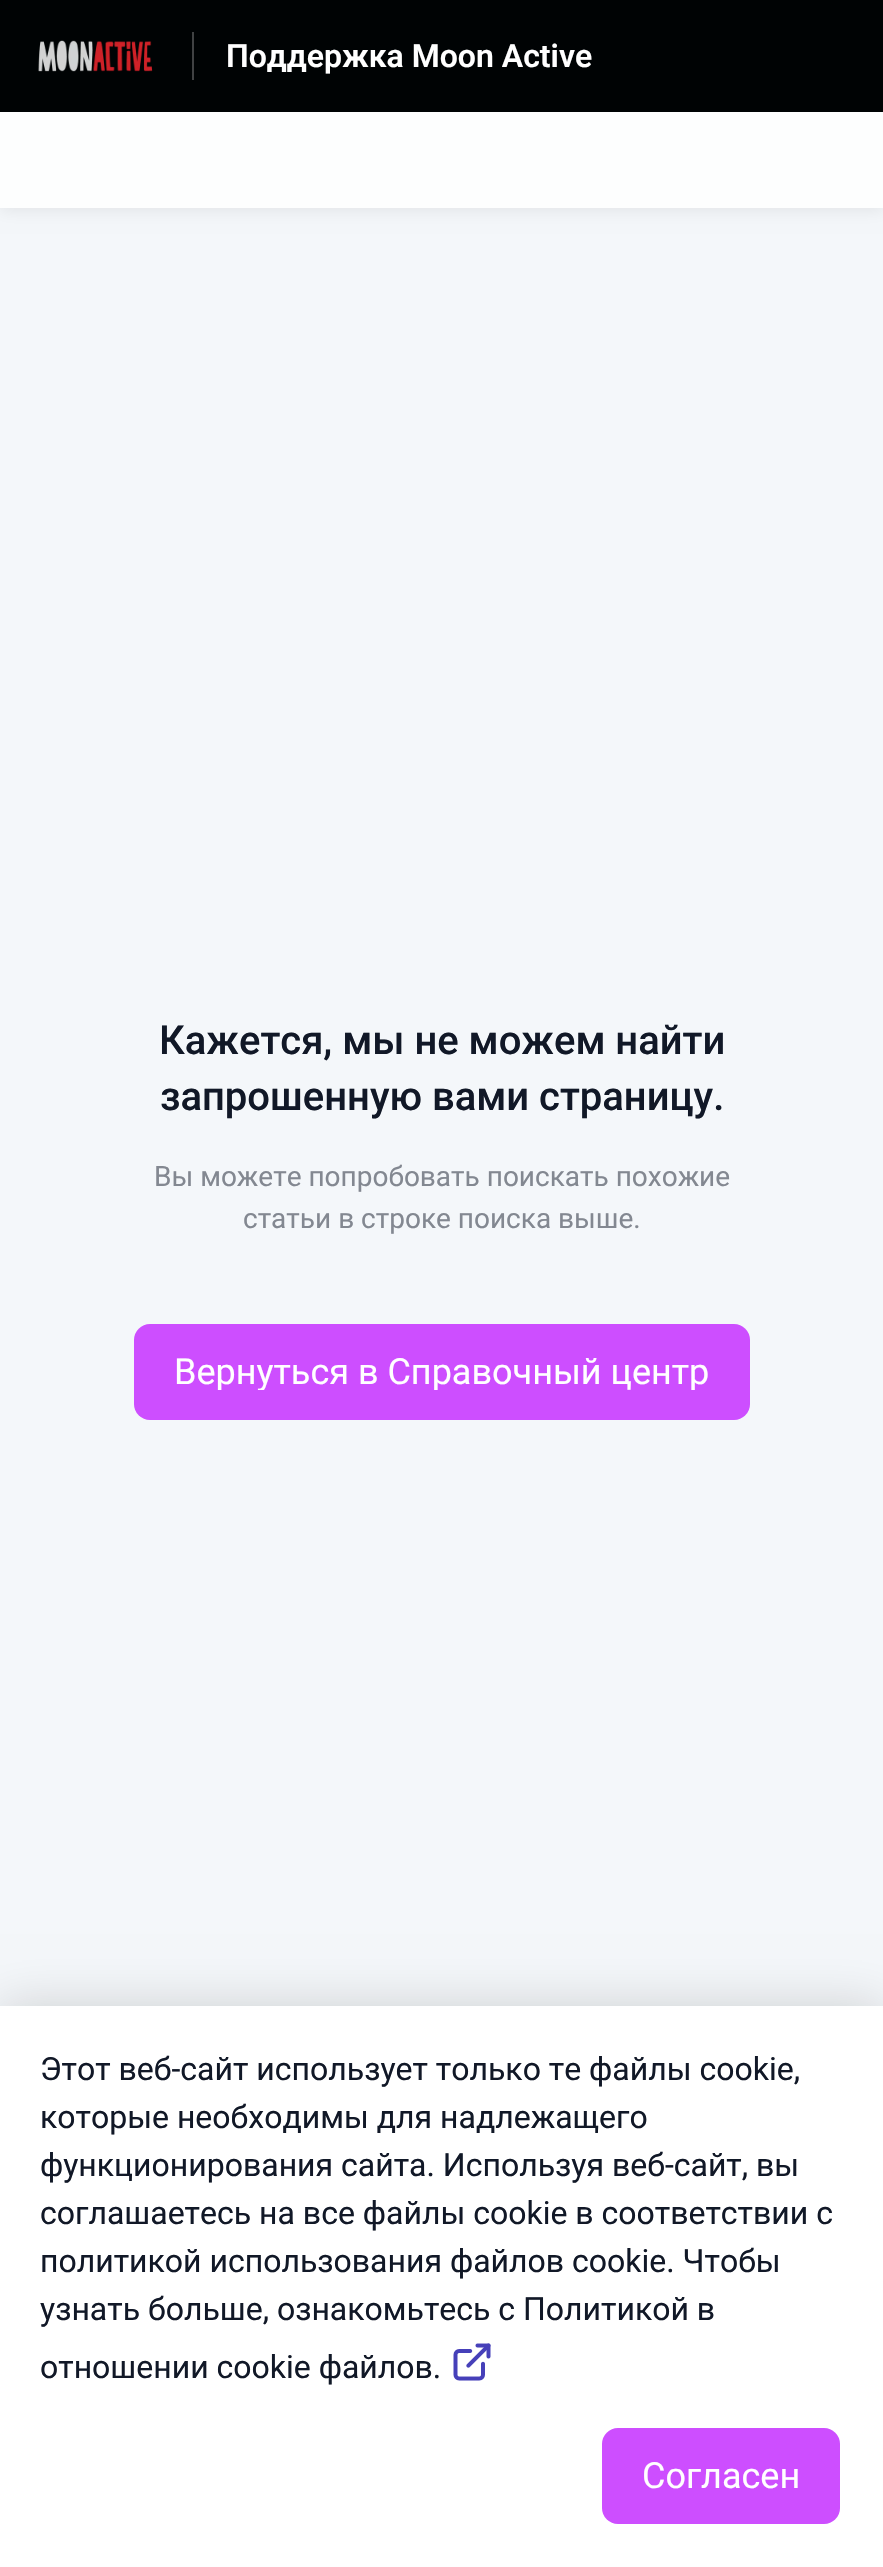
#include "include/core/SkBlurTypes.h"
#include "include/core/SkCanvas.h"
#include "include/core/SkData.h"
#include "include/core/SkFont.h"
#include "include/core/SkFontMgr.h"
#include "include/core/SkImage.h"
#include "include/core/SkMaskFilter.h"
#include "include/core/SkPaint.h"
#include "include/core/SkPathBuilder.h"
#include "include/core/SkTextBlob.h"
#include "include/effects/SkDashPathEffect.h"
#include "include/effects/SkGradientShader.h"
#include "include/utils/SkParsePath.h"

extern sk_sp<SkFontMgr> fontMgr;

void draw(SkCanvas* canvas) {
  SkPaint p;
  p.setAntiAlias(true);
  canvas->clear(SkColorSetRGB(244, 247, 250));
  p.setColor(SkColorSetARGB(20, 0, 0, 0));
  p.setMaskFilter(SkMaskFilter::MakeBlur(kNormal_SkBlurStyle, 8));
  canvas->drawRect(SkRect::MakeLTRB(0, 114, 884, 210), p);
  p.setMaskFilter(nullptr);
  p.setColor(SkColorSetRGB(0, 3, 4));
  canvas->drawRect(SkRect::MakeLTRB(0, 0, 883, 112), p);
  p.setColor(SkColorSetRGB(64, 66, 67));
  canvas->drawRect(SkRect::MakeLTRB(192, 32, 194, 80), p);
  canvas->drawImageRect(SkImages::DeferredFromEncodedData(SkData::MakeFromFileName("images/1.png")), SkRect::MakeLTRB(38, 40, 153, 72), SkSamplingOptions());
  p.setColor(SkColorSetRGB(253, 254, 254));
  canvas->drawRect(SkRect::MakeLTRB(0, 112, 883, 208), p);
  p.setColor(SkColorSetRGB(205, 78, 255));
  canvas->drawRoundRect(SkRect::MakeLTRB(134, 1324, 750, 1420), 16, 16, p);
  p.setColor(SkColorSetARGB(41, 0, 0, 0));
  p.setMaskFilter(SkMaskFilter::MakeBlur(kNormal_SkBlurStyle, 24));
  canvas->drawRect(SkRect::MakeLTRB(0, 2006, 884, 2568), p);
  p.setMaskFilter(nullptr);
  p.setColor(SK_ColorWHITE);
  canvas->drawRect(SkRect::MakeLTRB(0, 2006, 883, 2567), p);
  canvas->drawImageRect(SkImages::DeferredFromEncodedData(SkData::MakeFromFileName("images/2.png")), SkRect::MakeLTRB(453, 2343, 491, 2381), SkSamplingOptions());
  p.setColor(SkColorSetRGB(205, 78, 255));
  canvas->drawRoundRect(SkRect::MakeLTRB(602, 2428, 840, 2524), 16, 16, p);
  SkFont font1(fontMgr->matchFamilyStyle("Roboto", SkFontStyle(600, SkFontStyle::kNormal_Width, SkFontStyle::kUpright_Slant)), 32);
  font1.setSubpixel(true);
  p.setColor(SK_ColorWHITE);
  canvas->drawString("Поддержка Moon Active", 226, 67, font1, p);
  SkFont font2(fontMgr->matchFamilyStyle("Roboto", SkFontStyle(500, SkFontStyle::kNormal_Width, SkFontStyle::kUpright_Slant)), 40);
  font2.setSubpixel(true);
  p.setColor(SkColorSetRGB(17, 24, 39));
  canvas->drawString("Кажется, мы не можем найти", 159, 1054, font2, p);
  canvas->drawString("запрошенную вами страницу.", 160, 1110, font2, p);
  SkFont font3(fontMgr->matchFamilyStyle("Roboto", SkFontStyle::Normal()), 28);
  font3.setSubpixel(true);
  p.setColor(SkColorSetRGB(131, 136, 145));
  canvas->drawString("Вы можете попробовать поискать похожие", 154, 1186, font3, p);
  canvas->drawString("статьи в строке поиска выше.", 243, 1228, font3, p);
  canvas->save();
  canvas->clipRect(SkRect::MakeLTRB(174, 1354, 710, 1390));
  SkFont font4(fontMgr->matchFamilyStyle("Roboto", SkFontStyle::Normal()), 36);
  font4.setSubpixel(true);
  p.setColor(SK_ColorWHITE);
  canvas->drawString("Вернуться в Справочный центр", 174, 1384, font4, p);
  canvas->restore();
  SkFont font5(fontMgr->matchFamilyStyle("Roboto", SkFontStyle::Normal()), 32);
  font5.setSubpixel(true);
  p.setColor(SkColorSetRGB(17, 24, 39));
  canvas->drawString("Этот веб-сайт использует только те файлы cookie,", 40, 2080, font5, p);
  canvas->drawString("которые необходимы для надлежащего", 40, 2128, font5, p);
  canvas->drawString("функционирования сайта. Используя веб-сайт, вы", 40, 2176, font5, p);
  canvas->drawString("соглашаетесь на все файлы cookie в соответствии с", 40, 2224, font5, p);
  canvas->drawString("политикой использования файлов cookie. Чтобы", 40, 2272, font5, p);
  canvas->drawString("узнать больше, ознакомьтесь с Политикой в", 40, 2320, font5, p);
  canvas->drawString("отношении cookie файлов.", 40, 2378, font5, p);
  p.setColor(SK_ColorWHITE);
  canvas->drawString("Согласен", 642, 2488, font4, p);
}
